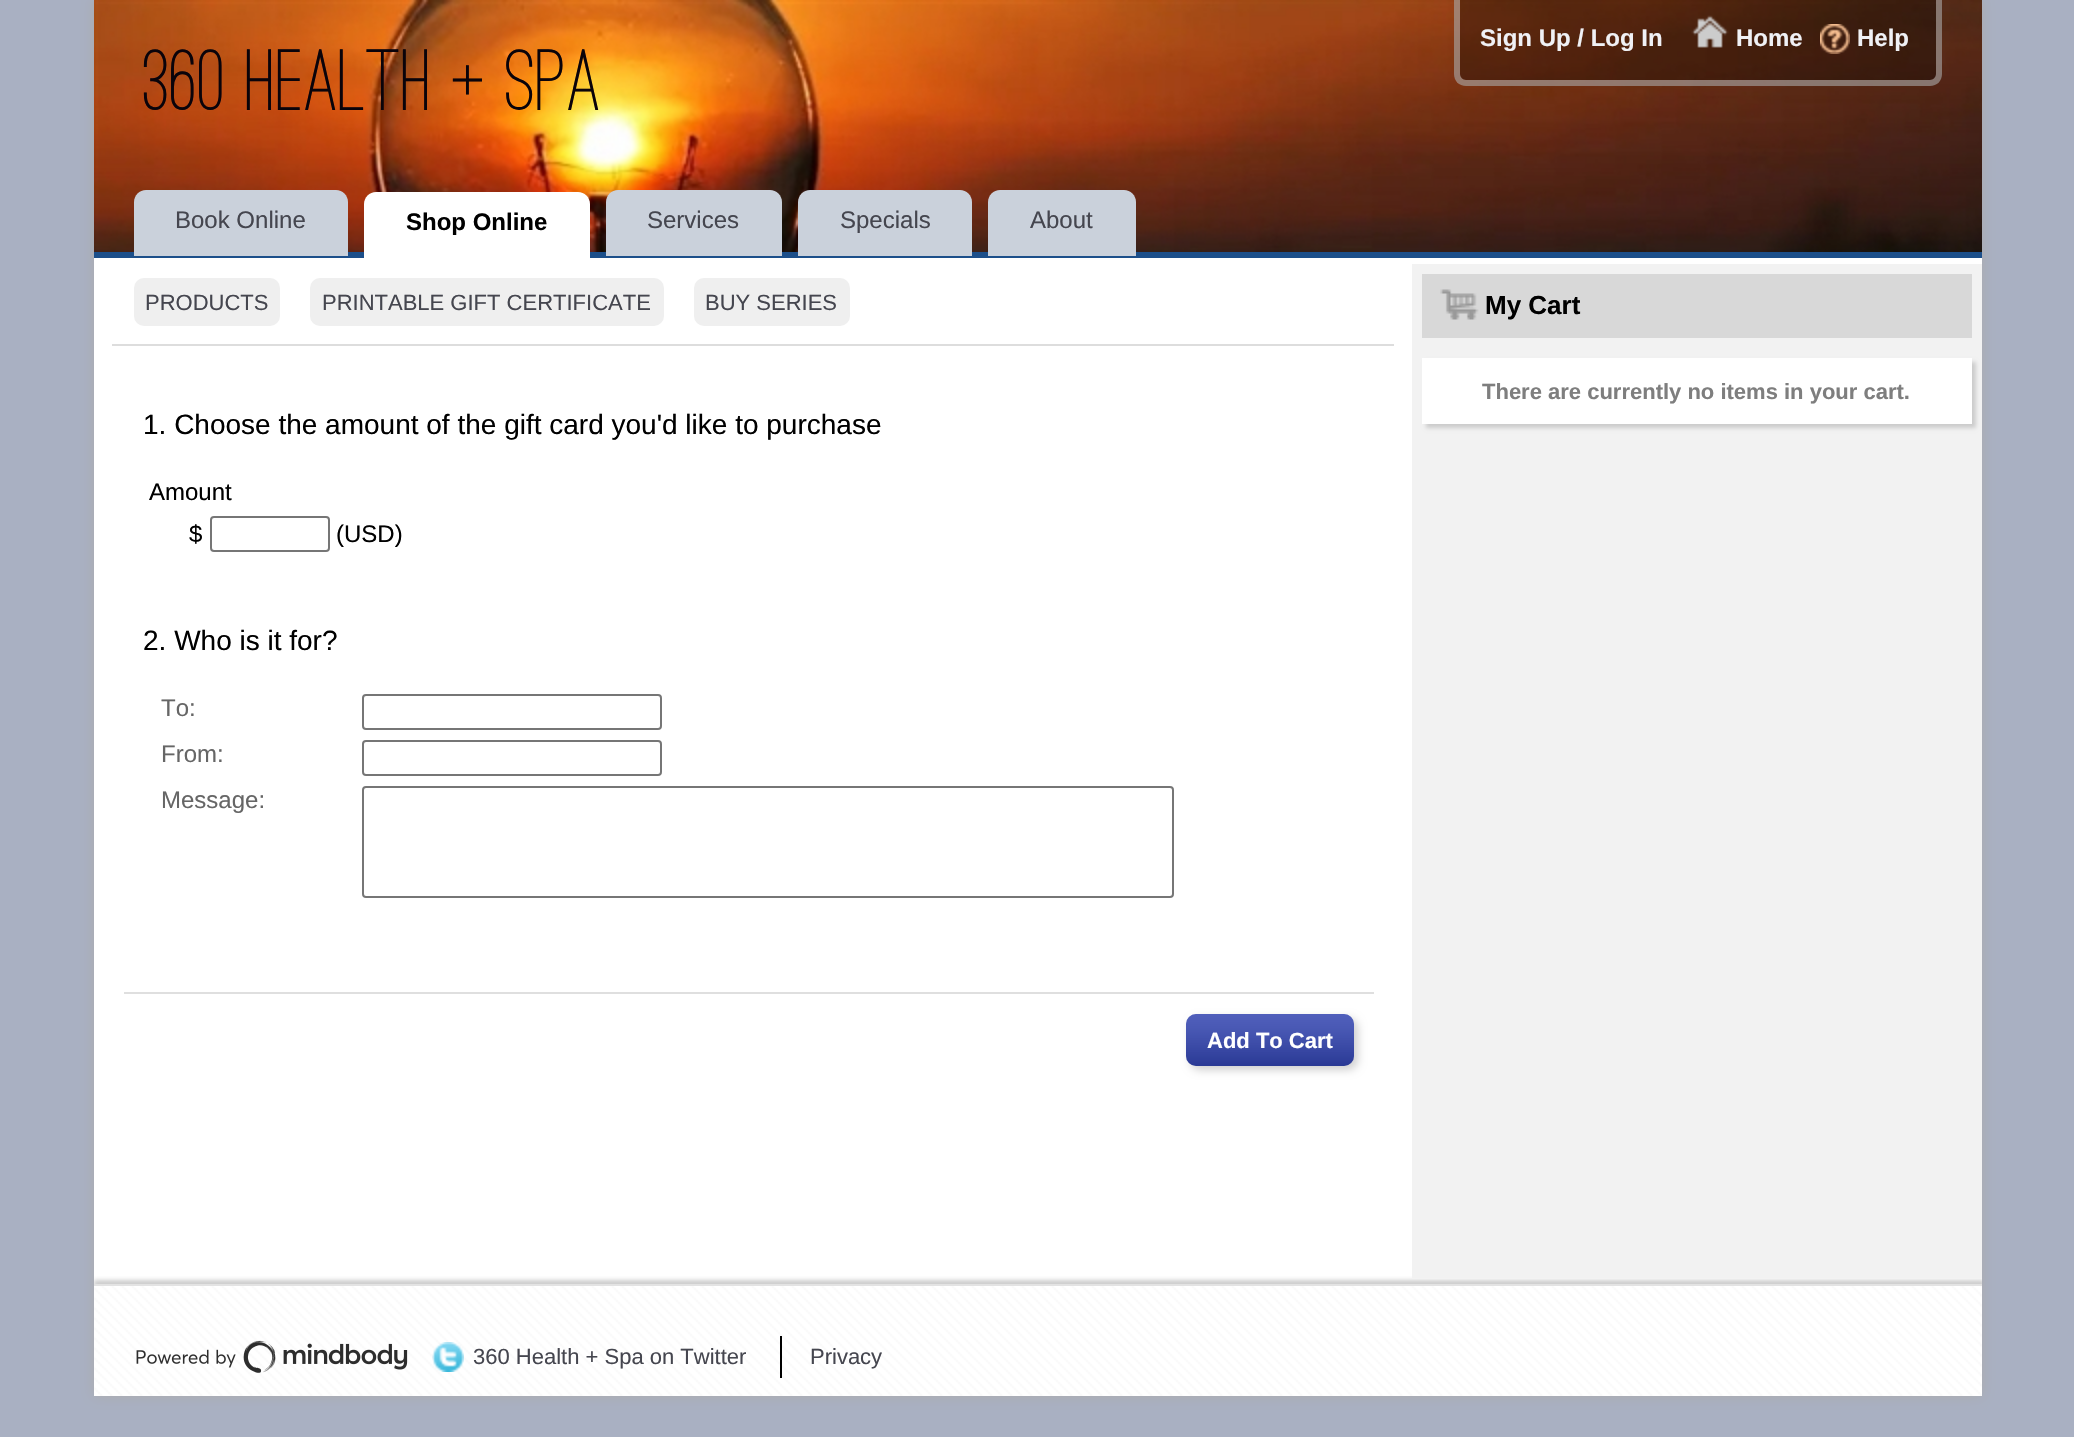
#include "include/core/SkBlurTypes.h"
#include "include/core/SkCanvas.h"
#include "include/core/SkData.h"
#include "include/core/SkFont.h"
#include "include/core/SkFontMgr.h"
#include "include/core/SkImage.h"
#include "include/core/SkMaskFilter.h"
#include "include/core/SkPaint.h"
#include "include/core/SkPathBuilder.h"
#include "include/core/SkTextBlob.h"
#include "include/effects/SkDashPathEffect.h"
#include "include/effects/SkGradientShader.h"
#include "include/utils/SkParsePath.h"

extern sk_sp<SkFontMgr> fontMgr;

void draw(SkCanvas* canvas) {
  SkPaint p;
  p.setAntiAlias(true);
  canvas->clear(SkColorSetRGB(169, 176, 194));
  p.setColor(SkColorSetRGB(171, 171, 171));
  p.setMaskFilter(SkMaskFilter::MakeBlur(kNormal_SkBlurStyle, 6));
  canvas->drawRect(SkRect::MakeLTRB(94, 0, 1982, 1396), p);
  p.setMaskFilter(nullptr);
  p.setColor(SK_ColorWHITE);
  canvas->drawRect(SkRect::MakeLTRB(94, 258, 1982, 1396), p);
  p.setColor(SkColorSetRGB(28, 79, 138));
  canvas->drawRect(SkRect::MakeLTRB(94, 252, 1982, 258), p);
  canvas->drawImageRect(SkImages::DeferredFromEncodedData(SkData::MakeFromFileName("images/1.png")), SkRect::MakeLTRB(94, 0, 1982, 252), SkSamplingOptions());
  p.setColor(SkColorSetARGB(89, 0, 0, 0));
  canvas->drawPath(SkPathBuilder().moveTo(1454, 0).lineTo(1942, 0).lineTo(1942, 74).cubicTo(1942, 80.5f, 1936.5f, 86, 1930, 86).lineTo(1466, 86).cubicTo(1459.5f, 86, 1454, 80.5f, 1454, 74).close().detach(), p);
  p.setColor(SkColorSetARGB(102, 255, 255, 255));
  canvas->drawPath(SkPathBuilder(SkPathFillType::kEvenOdd).moveTo(1454, 0).lineTo(1942, 0).lineTo(1942, 74).cubicTo(1942, 81, 1937, 86, 1930, 86).lineTo(1466, 86).cubicTo(1459, 86, 1454, 81, 1454, 74).close().moveTo(1460, 0).lineTo(1936, 0).lineTo(1936, 74).cubicTo(1936, 77, 1933, 80, 1930, 80).lineTo(1466, 80).cubicTo(1463, 80, 1460, 77, 1460, 74).close().detach(), p);
  canvas->drawImageRect(SkImages::DeferredFromEncodedData(SkData::MakeFromFileName("images/2.png")), SkRect::MakeLTRB(1691, 15, 1729, 48), SkSamplingOptions());
  canvas->drawImageRect(SkImages::DeferredFromEncodedData(SkData::MakeFromFileName("images/3.png")), SkRect::MakeLTRB(1820, 24, 1850, 54), SkSamplingOptions());
  p.setColor(SkColorSetRGB(202, 209, 219));
  canvas->drawPath(SkPathBuilder().moveTo(146, 190).lineTo(336, 190).cubicTo(342.5f, 190, 348, 195.5f, 348, 202).lineTo(348, 256).lineTo(134, 256).lineTo(134, 202).cubicTo(134, 195.5f, 139.5f, 190, 146, 190).close().detach(), p);
  p.setColor(SK_ColorWHITE);
  canvas->drawPath(SkPathBuilder().moveTo(376, 192).lineTo(578, 192).cubicTo(584.5f, 192, 590, 197.5f, 590, 204).lineTo(590, 258).lineTo(364, 258).lineTo(364, 204).cubicTo(364, 197.5f, 369.5f, 192, 376, 192).close().detach(), p);
  p.setColor(SkColorSetRGB(202, 209, 219));
  canvas->drawPath(SkPathBuilder().moveTo(618, 190).lineTo(770, 190).cubicTo(776.5f, 190, 782, 195.5f, 782, 202).lineTo(782, 256).lineTo(606, 256).lineTo(606, 202).cubicTo(606, 195.5f, 611.5f, 190, 618, 190).close().detach(), p);
  canvas->drawPath(SkPathBuilder().moveTo(810, 190).lineTo(960, 190).cubicTo(966.5f, 190, 972, 195.5f, 972, 202).lineTo(972, 256).lineTo(798, 256).lineTo(798, 202).cubicTo(798, 195.5f, 803.5f, 190, 810, 190).close().detach(), p);
  canvas->drawPath(SkPathBuilder().moveTo(1000, 190).lineTo(1124, 190).cubicTo(1130.5f, 190, 1136, 195.5f, 1136, 202).lineTo(1136, 256).lineTo(988, 256).lineTo(988, 202).cubicTo(988, 195.5f, 993.5f, 190, 1000, 190).close().detach(), p);
  p.setColor(SkColorSetRGB(221, 221, 221));
  canvas->drawRect(SkRect::MakeLTRB(112, 344, 1394, 346), p);
  p.setColor(SkColorSetRGB(239, 239, 239));
  canvas->drawRoundRect(SkRect::MakeLTRB(134, 278, 280, 326), 10, 10, p);
  canvas->drawRoundRect(SkRect::MakeLTRB(310, 278, 664, 326), 10, 10, p);
  canvas->drawRoundRect(SkRect::MakeLTRB(694, 278, 850, 326), 10, 10, p);
  canvas->drawImageRect(SkImages::DeferredFromEncodedData(SkData::MakeFromFileName("images/4.png")), SkRect::MakeLTRB(124, 394, 1374, 454), SkSamplingOptions());
  p.setStyle(SkPaint::kStroke_Style);
  p.setStrokeWidth(2);
  p.setColor(SkColorSetRGB(118, 118, 118));
  canvas->drawRoundRect(SkRect::MakeLTRB(211, 517, 329, 551), 3, 3, p);
  canvas->drawImageRect(SkImages::DeferredFromEncodedData(SkData::MakeFromFileName("images/4.png")), SkRect::MakeLTRB(124, 610, 1374, 670), SkSamplingOptions());
  canvas->drawRoundRect(SkRect::MakeLTRB(363, 695, 661, 729), 3, 3, p);
  canvas->drawRoundRect(SkRect::MakeLTRB(363, 741, 661, 775), 3, 3, p);
  canvas->drawRoundRect(SkRect::MakeLTRB(363, 787, 1173, 897), 3, 3, p);
  p.setStyle(SkPaint::kFill_Style);
  p.setColor(SkColorSetRGB(223, 223, 223));
  canvas->drawRect(SkRect::MakeLTRB(124, 992, 1374, 994), p);
  p.setColor(SkColorSetRGB(208, 208, 208));
  p.setMaskFilter(SkMaskFilter::MakeBlur(kNormal_SkBlurStyle, 4));
  canvas->drawRoundRect(SkRect::MakeLTRB(1190, 1018, 1358, 1070), 10, 10, p);
  p.setMaskFilter(nullptr);
  p.setColor(SkColorSetRGB(27, 47, 171));
  canvas->drawRoundRect(SkRect::MakeLTRB(1186, 1014, 1354, 1066), 10, 10, p);
  canvas->drawImageRect(SkImages::DeferredFromEncodedData(SkData::MakeFromFileName("images/5.png")), SkRect::MakeLTRB(1186, 1014, 1354, 1066), SkSamplingOptions());
  canvas->save();
  canvas->clipRect(SkRect::MakeLTRB(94, 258, 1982, 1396));
  canvas->clipRect(SkRect::MakeLTRB(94, 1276, 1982, 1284));
  p.setColor(SkColorSetRGB(206, 206, 206));
  p.setMaskFilter(SkMaskFilter::MakeBlur(kNormal_SkBlurStyle, 2));
  canvas->drawRect(SkRect::MakeLTRB(94, 1280, 1984, 1392), p);
  p.setMaskFilter(nullptr);
  canvas->restore();
  p.setColor(SkColorSetRGB(242, 242, 242));
  canvas->drawRect(SkRect::MakeLTRB(1412, 264, 1982, 1278), p);
  p.setColor(SkColorSetRGB(216, 216, 216));
  canvas->drawRect(SkRect::MakeLTRB(1422, 274, 1972, 338), p);
  canvas->drawImageRect(SkImages::DeferredFromEncodedData(SkData::MakeFromFileName("images/6.png")), SkRect::MakeLTRB(1440, 289, 1479, 320), SkSamplingOptions());
  p.setColor(SkColorSetRGB(204, 204, 204));
  p.setMaskFilter(SkMaskFilter::MakeBlur(kNormal_SkBlurStyle, 2));
  canvas->drawRect(SkRect::MakeLTRB(1426, 362, 1976, 428), p);
  p.setMaskFilter(nullptr);
  p.setColor(SK_ColorWHITE);
  canvas->drawRect(SkRect::MakeLTRB(1422, 358, 1972, 424), p);
  canvas->drawImageRect(SkImages::DeferredFromEncodedData(SkData::MakeFromFileName("images/7.png")), SkRect::MakeLTRB(94, 1286, 1982, 1396), SkSamplingOptions());
  p.setColor(SkColorSetRGB(227, 227, 227));
  canvas->drawRect(SkRect::MakeLTRB(94, 1284, 1982, 1286), p);
  canvas->drawImageRect(SkImages::DeferredFromEncodedData(SkData::MakeFromFileName("images/8.png")), SkRect::MakeLTRB(136, 1340, 408, 1373), SkSamplingOptions());
  canvas->drawImageRect(SkImages::DeferredFromEncodedData(SkData::MakeFromFileName("images/9.png")), SkRect::MakeLTRB(432, 1342, 464, 1372), SkSamplingOptions());
  p.setColor(SK_ColorBLACK);
  canvas->drawRect(SkRect::MakeLTRB(780, 1336, 782, 1378), p);
  SkFont font1(fontMgr->matchFamilyStyle("Liberation Sans", SkFontStyle::Bold()), 24);
  font1.setSubpixel(true);
  p.setColor(SkColorSetRGB(240, 241, 245));
  canvas->drawString("Sign Up / Log In", 1480, 46, font1, p);
  canvas->drawString("Home", 1736, 46, font1, p);
  canvas->drawString("Help", 1857, 46, font1, p);
  SkFont font2(fontMgr->matchFamilyStyle("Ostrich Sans", SkFontStyle(500, SkFontStyle::kNormal_Width, SkFontStyle::kUpright_Slant)), 90);
  font2.setSubpixel(true);
  p.setColor(SkColorSetRGB(10, 3, 10));
  canvas->drawString("360 Health + Spa", 143, 110, font2, p);
  SkFont font3(fontMgr->matchFamilyStyle("Liberation Sans", SkFontStyle::Normal()), 24);
  font3.setSubpixel(true);
  p.setColor(SkColorSetRGB(69, 70, 79));
  canvas->drawString("Book Online", 175, 228, font3, p);
  p.setColor(SK_ColorBLACK);
  canvas->drawString("Shop Online", 406, 230, font1, p);
  p.setColor(SkColorSetRGB(69, 70, 79));
  canvas->drawString("Services", 647, 228, font3, p);
  canvas->drawString("Specials", 840, 228, font3, p);
  canvas->drawString("About", 1030, 228, font3, p);
  SkFont font4(fontMgr->matchFamilyStyle("Liberation Sans", SkFontStyle::Normal()), 22);
  font4.setSubpixel(true);
  canvas->drawString("PRODUCTS", 145, 310, font4, p);
  canvas->drawString("PRINTABLE GIFT CERTIFICATE", 322, 310, font4, p);
  canvas->drawString("BUY SERIES", 705, 310, font4, p);
  SkFont font5(fontMgr->matchFamilyStyle("Liberation Sans", SkFontStyle::Normal()), 28);
  font5.setSubpixel(true);
  p.setColor(SK_ColorBLACK);
  canvas->drawString("1. Choose the amount of the gift card you'd like to purchase", 143, 434, font5, p);
  canvas->drawString("Amount", 149, 500, font3, p);
  canvas->drawString("$", 189, 542, font3, p);
  canvas->drawString("(USD)", 336, 542, font3, p);
  canvas->drawString("2. Who is it for?", 143, 650, font5, p);
  p.setColor(SkColorSetRGB(102, 102, 102));
  canvas->drawString("To:", 161, 716, font3, p);
  canvas->drawString("From:", 161, 762, font3, p);
  canvas->drawString("Message:", 161, 808, font3, p);
  SkFont font6(fontMgr->matchFamilyStyle("Liberation Sans", SkFontStyle::Bold()), 22);
  font6.setSubpixel(true);
  p.setColor(SK_ColorWHITE);
  canvas->drawString("Add To Cart", 1207, 1048, font6, p);
  SkFont font7(fontMgr->matchFamilyStyle("Liberation Sans", SkFontStyle::Bold()), 26);
  font7.setSubpixel(true);
  p.setColor(SK_ColorBLACK);
  canvas->drawString("My Cart", 1485, 314, font7, p);
  p.setColor(SkColorSetRGB(126, 126, 126));
  canvas->drawString("There are currently no items in your cart.", 1482, 399, font6, p);
  p.setColor(SkColorSetRGB(69, 70, 79));
  canvas->drawString("360 Health + Spa on Twitter", 473, 1364, font4, p);
  canvas->drawString("Privacy", 810, 1364, font4, p);
}
